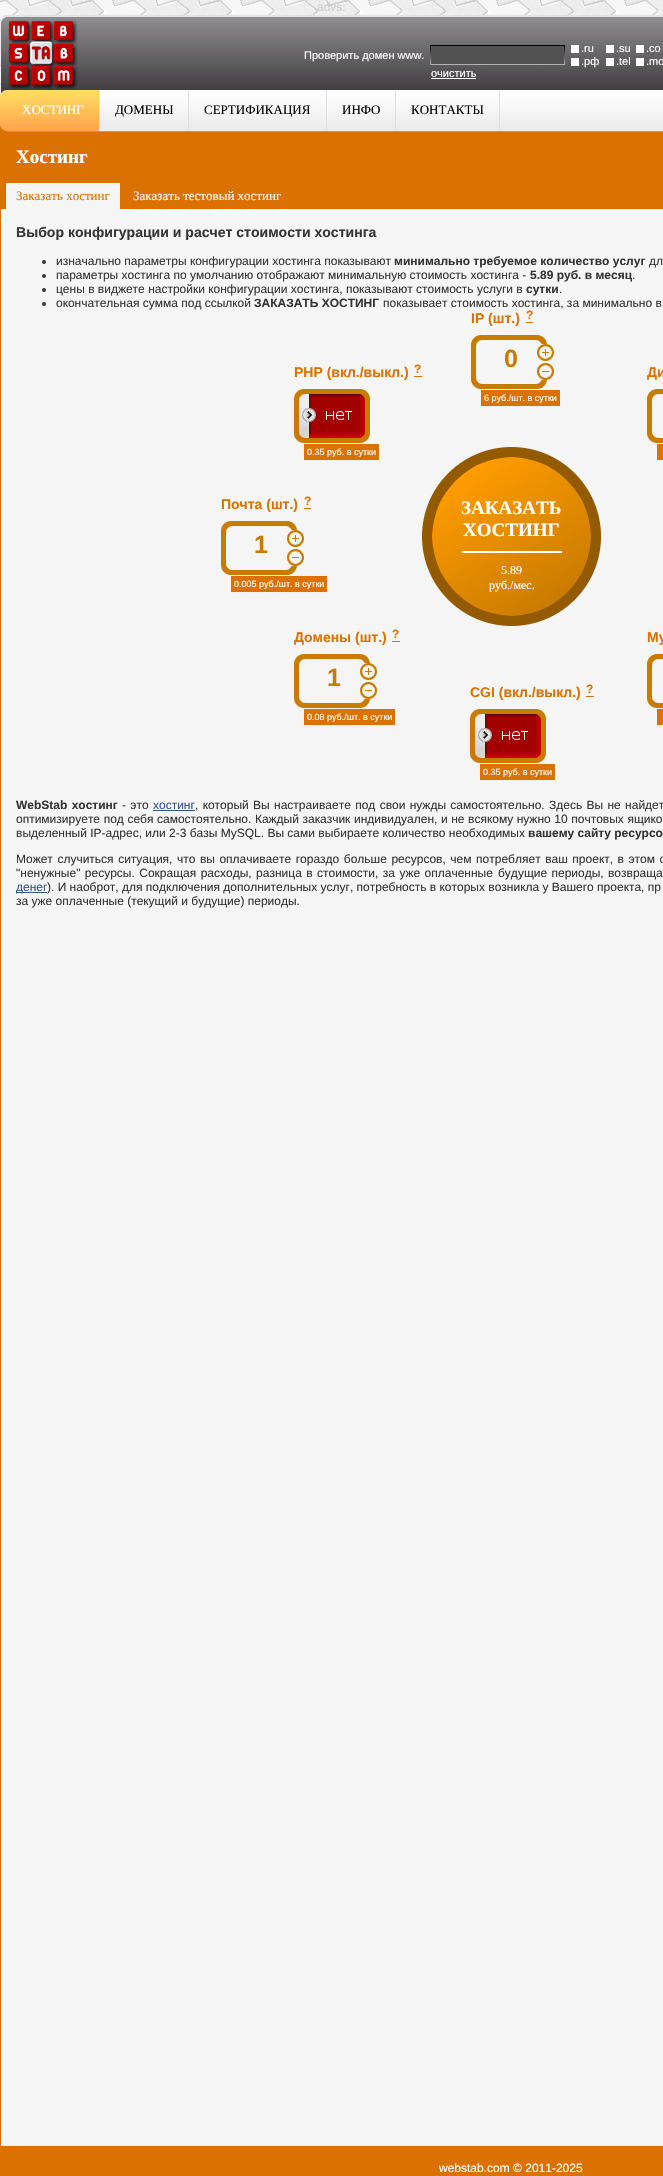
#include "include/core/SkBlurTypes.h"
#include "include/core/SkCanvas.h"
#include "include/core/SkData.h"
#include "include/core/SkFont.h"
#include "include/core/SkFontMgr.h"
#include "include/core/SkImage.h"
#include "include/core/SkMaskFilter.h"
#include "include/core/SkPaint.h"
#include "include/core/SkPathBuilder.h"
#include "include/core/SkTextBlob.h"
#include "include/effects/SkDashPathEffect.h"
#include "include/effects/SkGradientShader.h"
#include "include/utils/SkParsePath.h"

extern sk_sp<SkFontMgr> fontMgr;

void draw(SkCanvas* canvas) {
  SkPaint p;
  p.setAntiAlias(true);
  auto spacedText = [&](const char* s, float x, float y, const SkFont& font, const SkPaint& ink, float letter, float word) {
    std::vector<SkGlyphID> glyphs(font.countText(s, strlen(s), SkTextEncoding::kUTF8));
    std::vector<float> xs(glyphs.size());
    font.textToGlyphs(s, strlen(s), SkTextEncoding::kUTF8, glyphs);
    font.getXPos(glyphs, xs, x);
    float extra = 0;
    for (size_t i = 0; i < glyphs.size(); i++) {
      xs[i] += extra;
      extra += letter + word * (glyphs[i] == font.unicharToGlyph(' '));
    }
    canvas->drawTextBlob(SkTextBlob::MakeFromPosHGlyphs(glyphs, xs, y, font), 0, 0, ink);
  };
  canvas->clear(SK_ColorWHITE);
  canvas->drawImageRect(SkImages::DeferredFromEncodedData(SkData::MakeFromFileName("images/1.png")), SkRect::MakeLTRB(0, 0, 663, 97), SkSamplingOptions());
  canvas->drawImageRect(SkImages::DeferredFromEncodedData(SkData::MakeFromFileName("images/2.png")), SkRect::MakeLTRB(1, 15, 6, 94), SkSamplingOptions());
  canvas->drawImageRect(SkImages::DeferredFromEncodedData(SkData::MakeFromFileName("images/3.png")), SkRect::MakeLTRB(6, 15, 663, 91), SkSamplingOptions());
  canvas->drawImageRect(SkImages::DeferredFromEncodedData(SkData::MakeFromFileName("images/4.png")), SkRect::MakeLTRB(8, 20, 78, 90), SkSamplingOptions());
  canvas->drawImageRect(SkImages::DeferredFromEncodedData(SkData::MakeFromFileName("images/5.png")), SkRect::MakeLTRB(430, 45, 565, 65), SkSamplingOptions());
  p.setColor(SK_ColorWHITE);
  canvas->drawRect(SkRect::MakeLTRB(571, 45, 579, 53), p);
  canvas->drawRect(SkRect::MakeLTRB(606, 45, 614, 53), p);
  canvas->drawRect(SkRect::MakeLTRB(636, 45, 644, 53), p);
  canvas->drawRect(SkRect::MakeLTRB(571, 58, 579, 66), p);
  canvas->drawRect(SkRect::MakeLTRB(606, 58, 614, 66), p);
  canvas->drawRect(SkRect::MakeLTRB(636, 58, 644, 66), p);
  canvas->drawRect(SkRect::MakeLTRB(431, 78, 476, 79), p);
  p.setColor(SkColorSetRGB(219, 113, 0));
  canvas->drawRect(SkRect::MakeLTRB(0, 124, 1, 2146), p);
  canvas->drawRect(SkRect::MakeLTRB(1, 127, 663, 209), p);
  canvas->drawImageRect(SkImages::DeferredFromEncodedData(SkData::MakeFromFileName("images/6.png")), SkRect::MakeLTRB(0, 90, 7, 131), SkSamplingOptions());
  canvas->drawImageRect(SkImages::DeferredFromEncodedData(SkData::MakeFromFileName("images/7.png")), SkRect::MakeLTRB(7, 90, 663, 132), SkSamplingOptions());
  canvas->drawImageRect(SkImages::DeferredFromEncodedData(SkData::MakeFromFileName("images/8.png")), SkRect::MakeLTRB(7, 90, 99, 131), SkSamplingOptions());
  p.setColor(SkColorSetRGB(224, 224, 224));
  canvas->drawRect(SkRect::MakeLTRB(99, 90, 100, 131), p);
  canvas->drawRect(SkRect::MakeLTRB(188, 90, 189, 131), p);
  canvas->drawRect(SkRect::MakeLTRB(326, 90, 327, 131), p);
  canvas->drawRect(SkRect::MakeLTRB(395, 90, 396, 131), p);
  canvas->drawRect(SkRect::MakeLTRB(499, 90, 500, 131), p);
  p.setColor(SkColorSetRGB(245, 245, 245));
  canvas->drawRect(SkRect::MakeLTRB(1, 209, 663, 2146), p);
  canvas->drawRect(SkRect::MakeLTRB(6, 183, 120, 209), p);
  p.setColor(SkColorSetRGB(53, 53, 53));
  canvas->drawCircle(44, 262, 2, p);
  canvas->drawCircle(44, 276, 2, p);
  canvas->drawCircle(44, 290, 2, p);
  canvas->drawCircle(44, 304, 2, p);
  p.setColor(SkColorSetRGB(219, 113, 0));
  canvas->drawRect(SkRect::MakeLTRB(414, 376, 422, 377), p);
  canvas->drawImageRect(SkImages::DeferredFromEncodedData(SkData::MakeFromFileName("images/10.png")), SkRect::MakeLTRB(294, 394, 365, 438), SkSamplingOptions());
  canvas->drawImageRect(SkImages::DeferredFromEncodedData(SkData::MakeFromFileName("images/9.png")), SkRect::MakeLTRB(294, 389, 370, 443), SkSamplingOptions());
  canvas->drawRect(SkRect::MakeLTRB(304, 444, 379, 460), p);
  canvas->drawRect(SkRect::MakeLTRB(526, 322, 533, 323), p);
  canvas->drawImageRect(SkImages::DeferredFromEncodedData(SkData::MakeFromFileName("images/11.png")), SkRect::MakeLTRB(471, 335, 547, 389), SkSamplingOptions());
  p.setColor(SkColorSetRGB(245, 245, 245));
  canvas->drawRect(SkRect::MakeLTRB(541, 344, 547, 380), p);
  canvas->drawImageRect(SkImages::DeferredFromEncodedData(SkData::MakeFromFileName("images/12.png")), SkRect::MakeLTRB(537, 344, 554, 361), SkSamplingOptions());
  canvas->drawImageRect(SkImages::DeferredFromEncodedData(SkData::MakeFromFileName("images/13.png")), SkRect::MakeLTRB(537, 363, 554, 380), SkSamplingOptions());
  p.setColor(SkColorSetRGB(219, 113, 0));
  canvas->drawRect(SkRect::MakeLTRB(481, 390, 560, 406), p);
  canvas->drawImageRect(SkImages::DeferredFromEncodedData(SkData::MakeFromFileName("images/14.png")), SkRect::MakeLTRB(647, 389, 663, 443), SkSamplingOptions());
  canvas->drawRect(SkRect::MakeLTRB(657, 444, 663, 460), p);
  canvas->drawRect(SkRect::MakeLTRB(304, 508, 311, 509), p);
  canvas->drawImageRect(SkImages::DeferredFromEncodedData(SkData::MakeFromFileName("images/11.png")), SkRect::MakeLTRB(221, 521, 297, 575), SkSamplingOptions());
  p.setColor(SkColorSetRGB(245, 245, 245));
  canvas->drawRect(SkRect::MakeLTRB(291, 530, 297, 566), p);
  canvas->drawImageRect(SkImages::DeferredFromEncodedData(SkData::MakeFromFileName("images/12.png")), SkRect::MakeLTRB(287, 530, 304, 547), SkSamplingOptions());
  canvas->drawImageRect(SkImages::DeferredFromEncodedData(SkData::MakeFromFileName("images/13.png")), SkRect::MakeLTRB(287, 549, 304, 566), SkSamplingOptions());
  p.setColor(SkColorSetRGB(219, 113, 0));
  canvas->drawRect(SkRect::MakeLTRB(231, 576, 327, 592), p);
  canvas->drawImageRect(SkImages::DeferredFromEncodedData(SkData::MakeFromFileName("images/15.png")), SkRect::MakeLTRB(422, 447, 601, 626), SkSamplingOptions());
  p.setColor(SK_ColorWHITE);
  canvas->drawRect(SkRect::MakeLTRB(462, 551, 562, 553), p);
  p.setColor(SkColorSetRGB(219, 113, 0));
  canvas->drawRect(SkRect::MakeLTRB(392, 641, 400, 642), p);
  canvas->drawImageRect(SkImages::DeferredFromEncodedData(SkData::MakeFromFileName("images/11.png")), SkRect::MakeLTRB(294, 654, 370, 708), SkSamplingOptions());
  p.setColor(SkColorSetRGB(245, 245, 245));
  canvas->drawRect(SkRect::MakeLTRB(364, 663, 370, 699), p);
  canvas->drawImageRect(SkImages::DeferredFromEncodedData(SkData::MakeFromFileName("images/12.png")), SkRect::MakeLTRB(360, 663, 377, 680), SkSamplingOptions());
  canvas->drawImageRect(SkImages::DeferredFromEncodedData(SkData::MakeFromFileName("images/13.png")), SkRect::MakeLTRB(360, 682, 377, 699), SkSamplingOptions());
  p.setColor(SkColorSetRGB(219, 113, 0));
  canvas->drawRect(SkRect::MakeLTRB(304, 709, 395, 725), p);
  canvas->drawImageRect(SkImages::DeferredFromEncodedData(SkData::MakeFromFileName("images/14.png")), SkRect::MakeLTRB(647, 654, 663, 708), SkSamplingOptions());
  canvas->drawRect(SkRect::MakeLTRB(657, 709, 663, 725), p);
  canvas->drawRect(SkRect::MakeLTRB(586, 696, 594, 697), p);
  canvas->drawImageRect(SkImages::DeferredFromEncodedData(SkData::MakeFromFileName("images/10.png")), SkRect::MakeLTRB(470, 714, 541, 758), SkSamplingOptions());
  canvas->drawImageRect(SkImages::DeferredFromEncodedData(SkData::MakeFromFileName("images/9.png")), SkRect::MakeLTRB(470, 709, 546, 763), SkSamplingOptions());
  canvas->drawRect(SkRect::MakeLTRB(480, 764, 555, 780), p);
  p.setColor(SkColorSetRGB(54, 82, 139));
  canvas->drawRect(SkRect::MakeLTRB(153, 810, 195, 811), p);
  canvas->drawRect(SkRect::MakeLTRB(16, 892, 47, 893), p);
  p.setColor(SkColorSetRGB(219, 113, 0));
  canvas->drawRect(SkRect::MakeLTRB(0, 2146, 663, 2176), p);
  SkFont font1(fontMgr->matchFamilyStyle("Liberation Sans", SkFontStyle::Normal()), 12);
  font1.setSubpixel(true);
  p.setColor(SkColorSetRGB(204, 204, 204));
  canvas->drawString("advs:", 317, 11, font1, p);
  SkFont font2(fontMgr->matchFamilyStyle("Liberation Sans", SkFontStyle::Normal()), 11);
  font2.setSubpixel(true);
  p.setColor(SK_ColorWHITE);
  canvas->drawString(".ru", 581, 52, font2, p);
  canvas->drawString(".su", 616, 52, font2, p);
  canvas->drawString(".co", 646, 52, font2, p);
  canvas->drawString("Проверить домен www.", 304, 59, font2, p);
  canvas->drawString(".рф", 581, 65, font2, p);
  canvas->drawString(".tel", 616, 65, font2, p);
  canvas->drawString(".mo", 646, 65, font2, p);
  canvas->drawString("очистить", 431, 77, font2, p);
  SkFont font3(fontMgr->matchFamilyStyle("Liberation Serif", SkFontStyle::Normal()), 13);
  font3.setSubpixel(true);
  canvas->drawString("ХОСТИНГ", 22, 114, font3, p);
  p.setColor(SK_ColorBLACK);
  canvas->drawString("ДОМЕНЫ", 115, 114, font3, p);
  canvas->drawString("СЕРТИФИКАЦИЯ", 204, 114, font3, p);
  canvas->drawString("ИНФО", 342, 114, font3, p);
  canvas->drawString("КОНТАКТЫ", 411, 114, font3, p);
  SkFont font4(fontMgr->matchFamilyStyle("Liberation Serif", SkFontStyle::Bold()), 19);
  font4.setSubpixel(true);
  p.setColor(SK_ColorWHITE);
  canvas->drawString("Хостинг", 16, 163, font4, p);
  p.setColor(SkColorSetRGB(219, 113, 0));
  canvas->drawString("Заказать хостинг", 16, 200, font3, p);
  p.setColor(SkColorSetRGB(245, 245, 245));
  canvas->drawString("Заказать тестовый хостинг", 133, 200, font3, p);
  SkFont font5(fontMgr->matchFamilyStyle("Liberation Sans", SkFontStyle::Bold()), 14.05f);
  font5.setSubpixel(true);
  p.setColor(SkColorSetRGB(53, 53, 53));
  canvas->drawString("Выбор конфигурации и расчет стоимости хостинга", 16, 237, font5, p);
  canvas->drawString("изначально параметры конфигурации хостинга показывают", 56, 265, font1, p);
  SkFont font6(fontMgr->matchFamilyStyle("Liberation Sans", SkFontStyle::Bold()), 12);
  font6.setSubpixel(true);
  canvas->drawString("минимально требуемое количество услуг", 394, 265, font6, p);
  canvas->drawString("дл", 649, 265, font1, p);
  canvas->drawString("параметры хостинга по умолчанию отображают минимальную стоимость хостинга -", 56, 279, font1, p);
  canvas->drawString("5.89 руб. в месяц", 530, 279, font6, p);
  canvas->drawString(".", 632, 279, font1, p);
  canvas->drawString("цены в виджете настройки конфигурации хостинга, показывают стоимость услуги в", 56, 293, font1, p);
  canvas->drawString("сутки", 526, 293, font6, p);
  canvas->drawString(".", 559, 293, font1, p);
  canvas->drawString("окончательная сумма под ссылкой", 56, 307, font1, p);
  canvas->drawString("ЗАКАЗАТЬ ХОСТИНГ", 254, 307, font6, p);
  canvas->drawString("показывает стоимость хостинга, за минимально в", 383, 307, font1, p);
  SkFont font7(fontMgr->matchFamilyStyle("Liberation Sans", SkFontStyle::Bold()), 14);
  font7.setSubpixel(true);
  p.setColor(SkColorSetRGB(219, 113, 0));
  canvas->drawString("PHP (вкл./выкл.)", 294, 377, font7, p);
  canvas->drawString("?", 414, 373, font6, p);
  SkFont font8(fontMgr->matchFamilyStyle("Liberation Sans", SkFontStyle::Normal()), 9);
  font8.setSubpixel(true);
  p.setColor(SK_ColorWHITE);
  canvas->drawString("0.35 руб. в сутки", 307, 455, font8, p);
  p.setColor(SkColorSetRGB(219, 113, 0));
  canvas->drawString("IP (шт.)", 471, 323, font7, p);
  canvas->drawString("?", 526, 319, font6, p);
  SkFont font9(fontMgr->matchFamilyStyle("Liberation Sans", SkFontStyle::Bold()), 25);
  font9.setSubpixel(true);
  p.setColor(SkColorSetRGB(201, 123, 0));
  canvas->drawString("0", 504, 367, font9, p);
  p.setColor(SK_ColorWHITE);
  canvas->drawString("6 руб./шт. в сутки", 484, 401, font8, p);
  p.setColor(SkColorSetRGB(219, 113, 0));
  canvas->drawString("Ди", 647, 377, font7, p);
  canvas->drawString("Почта (шт.)", 221, 509, font7, p);
  canvas->drawString("?", 304, 505, font6, p);
  p.setColor(SkColorSetRGB(201, 123, 0));
  canvas->drawString("1", 254, 553, font9, p);
  p.setColor(SK_ColorWHITE);
  canvas->drawString("0.005 руб./шт. в сутки", 234, 587, font8, p);
  canvas->drawString("ЗАКАЗАТЬ", 461, 514, font4, p);
  canvas->drawString("ХОСТИНГ", 463, 536, font4, p);
  SkFont font10(fontMgr->matchFamilyStyle("Liberation Serif", SkFontStyle::Normal()), 12);
  font10.setSubpixel(true);
  canvas->drawString("5.89", 501, 574, font10, p);
  canvas->drawString("руб./мес.", 489, 589, font10, p);
  p.setColor(SkColorSetRGB(219, 113, 0));
  canvas->drawString("Домены (шт.)", 294, 642, font7, p);
  canvas->drawString("?", 392, 638, font6, p);
  p.setColor(SkColorSetRGB(201, 123, 0));
  canvas->drawString("1", 327, 686, font9, p);
  p.setColor(SK_ColorWHITE);
  canvas->drawString("0.08 руб./шт. в сутки", 307, 720, font8, p);
  p.setColor(SkColorSetRGB(219, 113, 0));
  canvas->drawString("My", 647, 642, font7, p);
  canvas->drawString("CGI (вкл./выкл.)", 470, 697, font7, p);
  canvas->drawString("?", 586, 693, font6, p);
  p.setColor(SK_ColorWHITE);
  canvas->drawString("0.35 руб. в сутки", 483, 775, font8, p);
  p.setColor(SkColorSetRGB(53, 53, 53));
  spacedText("WebStab хостинг", 16, 809, font6, p, 0, 1);
  spacedText("- это", 122, 809, font1, p, 0, 1);
  p.setColor(SkColorSetRGB(54, 82, 139));
  canvas->drawString("хостинг", 153, 809, font1, p);
  p.setColor(SkColorSetRGB(53, 53, 53));
  spacedText(", который Вы настраиваете под свои нужды самостоятельно. Здесь Вы не найдет", 195, 809, font1, p, 0, 1);
  spacedText("оптимизируете под себя самостоятельно. Каждый заказчик индивидуален, и не всякому нужно 10 почтовых ящико", 16, 823, font1, p, 0, 0.25f);
  canvas->drawString("выделенный IP-адрес, или 2-3 базы MySQL. Вы сами выбираете количество необходимых", 16, 837, font1, p);
  canvas->drawString("вашему сайту ресурсо", 528, 837, font6, p);
  spacedText("Может случиться ситуация, что вы оплачиваете гораздо больше ресурсов, чем потребляет ваш проект, в этом с", 16, 863, font1, p, 0, 1.2f);
  spacedText("\"ненужные\" ресурсы. Сокращая расходы, разница в стоимости, за уже оплаченные", 16, 877, font1, p, 0, 1.1f);
  spacedText("будущие периоды, возвраща", 498, 877, font1, p, 0, 1);
  p.setColor(SkColorSetRGB(54, 82, 139));
  canvas->drawString("денег", 16, 891, font1, p);
  p.setColor(SkColorSetRGB(53, 53, 53));
  canvas->drawString("). И наоброт, для подключения дополнительных услуг, потребность в которых возникла у Вашего проекта, пр", 47, 891, font1, p);
  canvas->drawString("за уже оплаченные (текущий и будущие) периоды.", 16, 905, font1, p);
  p.setColor(SK_ColorWHITE);
  canvas->drawString("webstab.com © 2011-2025", 439, 2172, font1, p);
}
